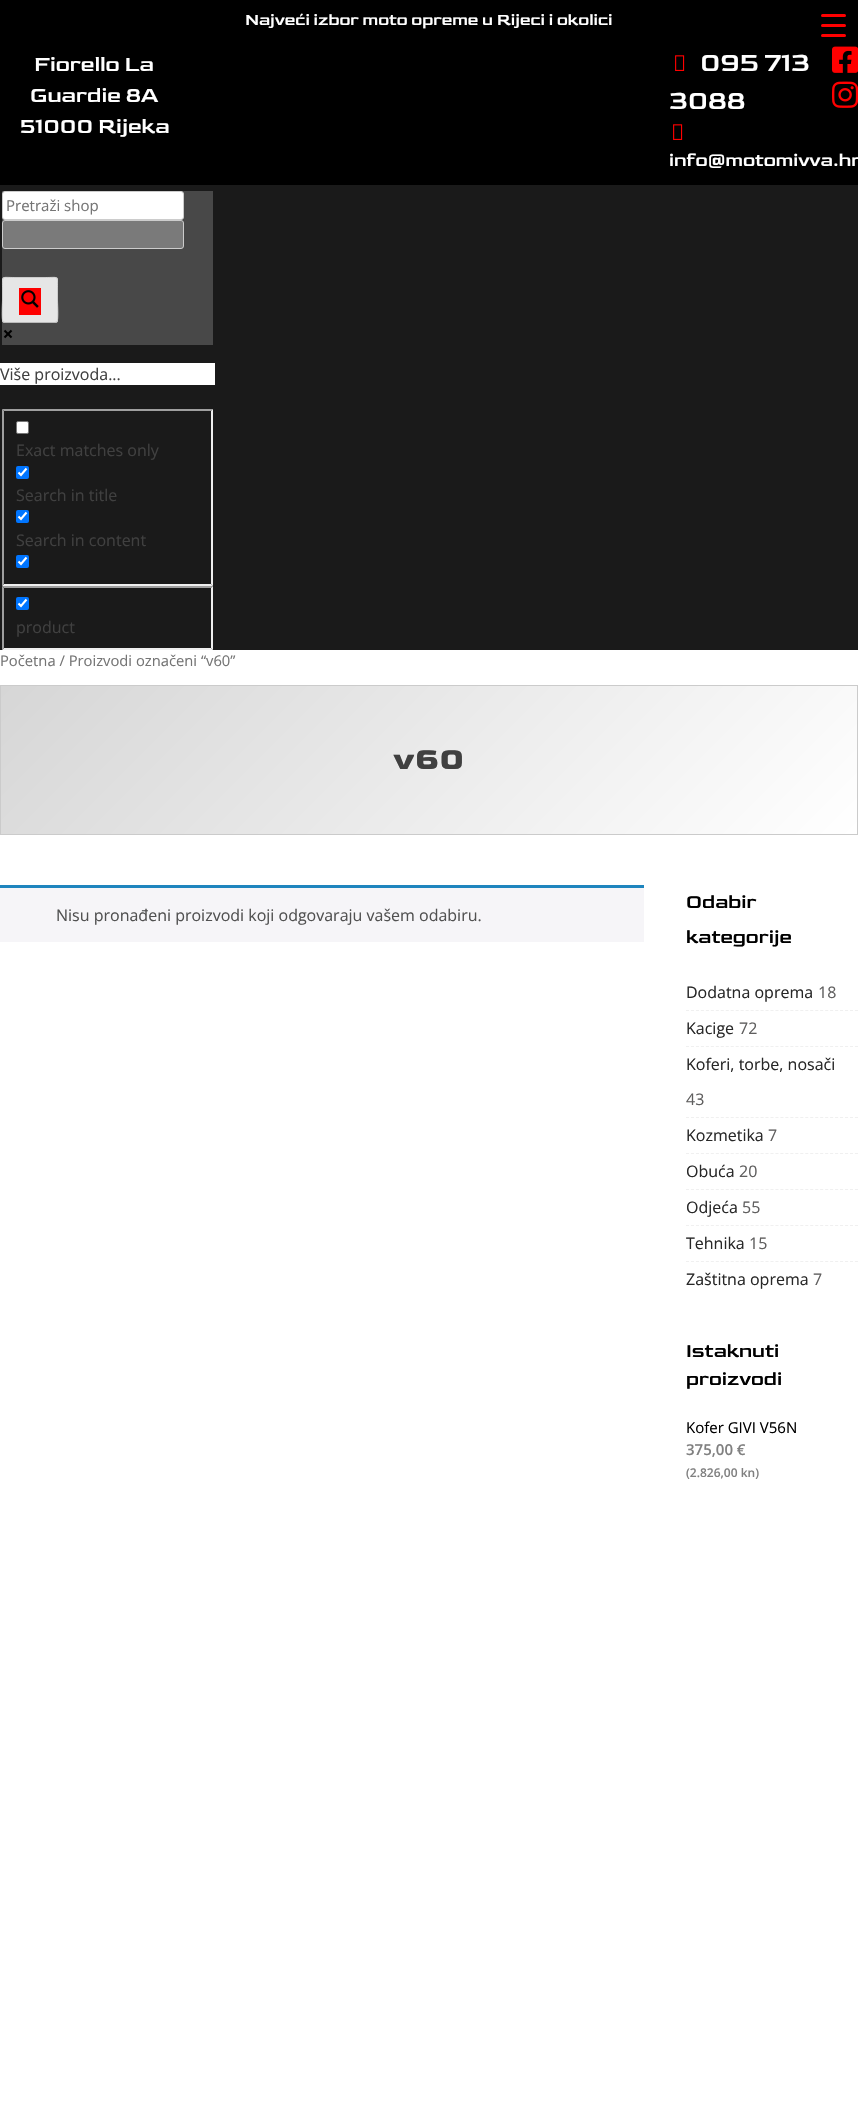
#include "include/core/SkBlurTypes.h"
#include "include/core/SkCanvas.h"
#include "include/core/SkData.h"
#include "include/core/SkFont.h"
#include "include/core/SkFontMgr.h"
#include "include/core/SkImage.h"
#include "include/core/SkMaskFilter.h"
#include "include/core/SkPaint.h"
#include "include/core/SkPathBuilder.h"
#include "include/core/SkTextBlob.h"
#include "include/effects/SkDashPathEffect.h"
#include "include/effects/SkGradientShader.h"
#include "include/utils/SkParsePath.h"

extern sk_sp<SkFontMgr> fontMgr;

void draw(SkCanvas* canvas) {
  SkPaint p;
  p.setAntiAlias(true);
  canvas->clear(SK_ColorWHITE);
  p.setColor(SK_ColorBLACK);
  canvas->drawRect(SkRect::MakeLTRB(0, 0, 858, 185), p);
  canvas->drawImageRect(SkImages::DeferredFromEncodedData(SkData::MakeFromFileName("images/1.png")), SkRect::MakeLTRB(832, 46, 858, 73), SkSamplingOptions());
  canvas->drawImageRect(SkImages::DeferredFromEncodedData(SkData::MakeFromFileName("images/2.png")), SkRect::MakeLTRB(832, 81, 858, 108), SkSamplingOptions());
  canvas->drawImageRect(SkImages::DeferredFromEncodedData(SkData::MakeFromFileName("images/3.png")), SkRect::MakeLTRB(675, 55, 685, 71), SkSamplingOptions());
  canvas->drawImageRect(SkImages::DeferredFromEncodedData(SkData::MakeFromFileName("images/3.png")), SkRect::MakeLTRB(673, 124, 683, 140), SkSamplingOptions());
  p.setColor(SkColorSetRGB(26, 26, 26));
  canvas->drawRect(SkRect::MakeLTRB(0, 185, 858, 650), p);
  p.setColor(SkColorSetRGB(72, 72, 72));
  canvas->drawRect(SkRect::MakeLTRB(2, 191, 213, 345), p);
  p.setColor(SK_ColorWHITE);
  canvas->drawRoundRect(SkRect::MakeLTRB(2.5f, 191.5f, 183.5f, 219.5f), 2.5f, 2.5f, p);
  p.setStyle(SkPaint::kStroke_Style);
  p.setStrokeWidth(1);
  p.setColor(SkColorSetRGB(204, 204, 204));
  canvas->drawRoundRect(SkRect::MakeLTRB(2.5f, 191.5f, 183.5f, 219.5f), 2.5f, 2.5f, p);
  p.setStyle(SkPaint::kFill_Style);
  p.setColor(SkColorSetRGB(122, 122, 122));
  canvas->drawRoundRect(SkRect::MakeLTRB(2.5f, 220.5f, 183.5f, 248.5f), 2.5f, 2.5f, p);
  p.setStyle(SkPaint::kStroke_Style);
  p.setColor(SkColorSetRGB(204, 204, 204));
  canvas->drawRoundRect(SkRect::MakeLTRB(2.5f, 220.5f, 183.5f, 248.5f), 2.5f, 2.5f, p);
  p.setStyle(SkPaint::kFill_Style);
  p.setColor(SkColorSetRGB(230, 230, 230));
  canvas->drawRoundRect(SkRect::MakeLTRB(2, 277, 58, 323), 3, 3, p);
  p.setStyle(SkPaint::kStroke_Style);
  p.setColor(SkColorSetRGB(187, 187, 187));
  canvas->drawPath(SkPathBuilder().moveTo(57, 322).lineTo(55, 322.5f).lineTo(5, 322.5f).lineTo(3, 322).detach(), p);
  p.setColor(SkColorSetRGB(204, 204, 204));
  canvas->drawPath(SkPathBuilder().moveTo(3, 322).cubicTo(1.5f, 320, 2.5f, 303.5f, 2.5f, 300).lineTo(2.5f, 286.5f).cubicTo(2.5f, 275.5f, 1.5f, 277.5f, 13.5f, 277.5f).lineTo(46.5f, 277.5f).cubicTo(58.5f, 277.5f, 57.5f, 275.5f, 57.5f, 286.5f).lineTo(57.5f, 300).cubicTo(57.5f, 303.5f, 58.5f, 320, 57, 322).detach(), p);
  p.setStyle(SkPaint::kFill_Style);
  p.setColor(SkColorSetRGB(253, 0, 0));
  canvas->drawRect(SkRect::MakeLTRB(19, 288, 41, 315), p);
  canvas->drawImageRect(SkImages::DeferredFromEncodedData(SkData::MakeFromFileName("images/4.png")), SkRect::MakeLTRB(21, 290, 39, 308), SkSamplingOptions());
  canvas->drawImageRect(SkImages::DeferredFromEncodedData(SkData::MakeFromFileName("images/5.png")), SkRect::MakeLTRB(3, 329, 13, 339), SkSamplingOptions());
  p.setColor(SK_ColorWHITE);
  canvas->drawRect(SkRect::MakeLTRB(0, 363, 215, 385), p);
  p.setColor(SkColorSetRGB(159, 159, 159));
  canvas->drawPath(SkPathBuilder().moveTo(2, 409).lineTo(213, 409).lineTo(211, 411).lineTo(4, 411).close().detach(), p);
  p.setColor(SkColorSetRGB(239, 239, 239));
  canvas->drawPath(SkPathBuilder().moveTo(213, 409).lineTo(213, 586).lineTo(211, 584).lineTo(211, 411).close().detach(), p);
  canvas->drawPath(SkPathBuilder().moveTo(213, 586).lineTo(2, 586).lineTo(4, 584).lineTo(211, 584).close().detach(), p);
  p.setColor(SkColorSetRGB(159, 159, 159));
  canvas->drawPath(SkPathBuilder().moveTo(2, 586).lineTo(2, 409).lineTo(4, 411).lineTo(4, 584).close().detach(), p);
  p.setColor(SK_ColorWHITE);
  canvas->drawRoundRect(SkRect::MakeLTRB(16.5f, 421.5f, 28.5f, 433.5f), 1.5f, 1.5f, p);
  p.setStyle(SkPaint::kStroke_Style);
  p.setColor(SkColorSetRGB(118, 118, 118));
  canvas->drawRoundRect(SkRect::MakeLTRB(16.5f, 421.5f, 28.5f, 433.5f), 1.5f, 1.5f, p);
  p.setStyle(SkPaint::kFill_Style);
  p.setColor(SkColorSetRGB(0, 117, 255));
  canvas->drawRoundRect(SkRect::MakeLTRB(16, 466, 29, 479), 2, 2, p);
  p.setStyle(SkPaint::kStroke_Style);
  p.setStrokeWidth(2.1f);
  p.setColor(SK_ColorWHITE);
  canvas->drawPath(SkPathBuilder().moveTo(18.5f, 472.5f).lineTo(21, 475).lineTo(26.5f, 468.5f).detach(), p);
  p.setStyle(SkPaint::kFill_Style);
  p.setColor(SkColorSetRGB(0, 117, 255));
  canvas->drawRoundRect(SkRect::MakeLTRB(16, 510, 29, 523), 2, 2, p);
  p.setStyle(SkPaint::kStroke_Style);
  p.setColor(SK_ColorWHITE);
  canvas->drawPath(SkPathBuilder().moveTo(18.5f, 516.5f).lineTo(21, 519).lineTo(26.5f, 512.5f).detach(), p);
  p.setStyle(SkPaint::kFill_Style);
  p.setColor(SkColorSetRGB(0, 117, 255));
  canvas->drawRoundRect(SkRect::MakeLTRB(16, 555, 29, 568), 2, 2, p);
  p.setStyle(SkPaint::kStroke_Style);
  p.setColor(SK_ColorWHITE);
  canvas->drawPath(SkPathBuilder().moveTo(18.5f, 561.5f).lineTo(21, 564).lineTo(26.5f, 557.5f).detach(), p);
  p.setStyle(SkPaint::kFill_Style);
  p.setColor(SkColorSetRGB(159, 159, 159));
  canvas->drawPath(SkPathBuilder().moveTo(2, 586).lineTo(213, 586).lineTo(211, 588).lineTo(4, 588).close().detach(), p);
  p.setColor(SkColorSetRGB(239, 239, 239));
  canvas->drawPath(SkPathBuilder().moveTo(213, 586).lineTo(213, 650).lineTo(211, 648).lineTo(211, 588).close().detach(), p);
  canvas->drawPath(SkPathBuilder().moveTo(213, 650).lineTo(2, 650).lineTo(4, 648).lineTo(211, 648).close().detach(), p);
  p.setColor(SkColorSetRGB(159, 159, 159));
  canvas->drawPath(SkPathBuilder().moveTo(2, 650).lineTo(2, 586).lineTo(4, 588).lineTo(4, 648).close().detach(), p);
  p.setColor(SkColorSetRGB(0, 117, 255));
  canvas->drawRoundRect(SkRect::MakeLTRB(16, 597, 29, 610), 2, 2, p);
  p.setStyle(SkPaint::kStroke_Style);
  p.setColor(SK_ColorWHITE);
  canvas->drawPath(SkPathBuilder().moveTo(18.5f, 603.5f).lineTo(21, 606).lineTo(26.5f, 599.5f).detach(), p);
  p.setStyle(SkPaint::kFill_Style);
  {
    const SkColor colors[] = {SkColorSetRGB(214, 214, 214), SK_ColorWHITE};
    const float stops[] = {0, 1};
    const SkPoint ends[] = {{178, 509}, {680, 1011}};
    p.setShader(SkGradientShader::MakeLinear(ends, colors, stops, 2, SkTileMode::kClamp));
    p.setAlpha(255);
  }
  canvas->drawRect(SkRect::MakeLTRB(1, 686, 857, 834), p);
  p.setStyle(SkPaint::kStroke_Style);
  p.setStrokeWidth(1);
  p.setShader(nullptr);
  p.setColor(SkColorSetRGB(203, 203, 203));
  canvas->drawRect(SkRect::MakeLTRB(0.5f, 685.5f, 857.5f, 834.5f), p);
  p.setStyle(SkPaint::kFill_Style);
  p.setColor(SkColorSetRGB(246, 245, 248));
  canvas->drawRect(SkRect::MakeLTRB(0, 888, 644, 942), p);
  p.setColor(SkColorSetRGB(30, 133, 190));
  canvas->drawRect(SkRect::MakeLTRB(0, 885, 644, 888), p);
  p.setStyle(SkPaint::kStroke_Style);
  p.setColor(SkColorSetRGB(240, 240, 240));
  p.setPathEffect(SkDashPathEffect::Make({{3, 1.97f}}, 0));
  canvas->drawPath(SkPathBuilder().moveTo(686, 1010.5f).lineTo(858, 1010.5f).detach(), p);
  p.setPathEffect(nullptr);
  p.setPathEffect(SkDashPathEffect::Make({{3, 1.97f}}, 0));
  canvas->drawPath(SkPathBuilder().moveTo(686, 1046.5f).lineTo(858, 1046.5f).detach(), p);
  p.setPathEffect(nullptr);
  p.setPathEffect(SkDashPathEffect::Make({{3, 1.97f}}, 0));
  canvas->drawPath(SkPathBuilder().moveTo(686, 1117.5f).lineTo(858, 1117.5f).detach(), p);
  p.setPathEffect(nullptr);
  p.setPathEffect(SkDashPathEffect::Make({{3, 1.97f}}, 0));
  canvas->drawPath(SkPathBuilder().moveTo(686, 1153.5f).lineTo(858, 1153.5f).detach(), p);
  p.setPathEffect(nullptr);
  p.setPathEffect(SkDashPathEffect::Make({{3, 1.97f}}, 0));
  canvas->drawPath(SkPathBuilder().moveTo(686, 1189.5f).lineTo(858, 1189.5f).detach(), p);
  p.setPathEffect(nullptr);
  p.setPathEffect(SkDashPathEffect::Make({{3, 1.97f}}, 0));
  canvas->drawPath(SkPathBuilder().moveTo(686, 1225.5f).lineTo(858, 1225.5f).detach(), p);
  p.setPathEffect(nullptr);
  p.setPathEffect(SkDashPathEffect::Make({{3, 1.97f}}, 0));
  canvas->drawPath(SkPathBuilder().moveTo(686, 1261.5f).lineTo(858, 1261.5f).detach(), p);
  p.setPathEffect(nullptr);
  p.setStyle(SkPaint::kFill_Style);
  p.setColor(SkColorSetRGB(255, 0, 0));
  canvas->drawRoundRect(SkRect::MakeLTRB(821, 24, 846, 27), 1.5f, 1.5f, p);
  canvas->drawRoundRect(SkRect::MakeLTRB(821, 14, 846, 17), 1.5f, 1.5f, p);
  canvas->drawRoundRect(SkRect::MakeLTRB(821, 34, 846, 37), 1.5f, 1.5f, p);
  SkFont font1(fontMgr->matchFamilyStyle("Goldman", SkFontStyle::Normal()), 17);
  font1.setSubpixel(true);
  p.setColor(SK_ColorWHITE);
  canvas->drawString("Najveći izbor moto opreme u Rijeci i okolici", 245, 25, font1, p);
  SkFont font2(fontMgr->matchFamilyStyle("Goldman", SkFontStyle::Normal()), 22);
  font2.setSubpixel(true);
  canvas->drawString("Fiorello La", 34, 71, font2, p);
  canvas->drawString("Guardie 8A", 30, 102, font2, p);
  canvas->drawString("51000 Rijeka", 20, 133, font2, p);
  SkFont font3(fontMgr->matchFamilyStyle("Goldman", SkFontStyle::Normal()), 27);
  font3.setSubpixel(true);
  canvas->drawString("095 713", 700, 71, font3, p);
  canvas->drawString("3088", 669, 109, font3, p);
  SkFont font4(fontMgr->matchFamilyStyle("Goldman", SkFontStyle::Normal()), 19);
  font4.setSubpixel(true);
  canvas->drawString("info@motomivva.hr", 669, 166, font4, p);
  SkFont font5(fontMgr->matchFamilyStyle("Open Sans", SkFontStyle::Normal()), 15);
  font5.setSubpixel(true);
  p.setColor(SkColorSetRGB(117, 117, 117));
  canvas->drawString("Pretraži shop", 6, 211, font5, p);
  SkFont font6(fontMgr->matchFamilyStyle("Open Sans", SkFontStyle::Normal()), 16);
  font6.setSubpixel(true);
  p.setColor(SkColorSetRGB(64, 64, 64));
  canvas->drawString("Više proizvoda...", 0, 380, font6, p);
  canvas->drawString("Exact matches only", 16, 456, font6, p);
  canvas->drawString("Search in title", 16, 501, font6, p);
  canvas->drawString("Search in content", 16, 546, font6, p);
  canvas->drawString("product", 16, 633, font6, p);
  SkFont font7(fontMgr->matchFamilyStyle("Open Sans", SkFontStyle::Normal()), 14.75f);
  font7.setSubpixel(true);
  p.setColor(SkColorSetRGB(117, 117, 117));
  canvas->drawString("Početna / Proizvodi označeni “v60”", 0, 666, font7, p);
  SkFont font8(fontMgr->matchFamilyStyle("Goldman", SkFontStyle::Bold()), 32);
  font8.setSubpixel(true);
  p.setColor(SkColorSetRGB(64, 64, 64));
  canvas->drawString("v60", 393, 769, font8, p);
  p.setColor(SkColorSetRGB(81, 81, 81));
  canvas->drawString("Nisu pronađeni proizvodi koji odgovaraju vašem odabiru.", 56, 921, font6, p);
  SkFont font9(fontMgr->matchFamilyStyle("Goldman", SkFontStyle::Normal()), 20);
  font9.setSubpixel(true);
  p.setColor(SK_ColorBLACK);
  canvas->drawString("Odabir", 686, 908, font9, p);
  canvas->drawString("kategorije", 686, 943, font9, p);
  p.setColor(SkColorSetRGB(40, 40, 40));
  canvas->drawString("Dodatna oprema", 686, 998, font6, p);
  p.setColor(SkColorSetRGB(96, 95, 95));
  canvas->drawString("18", 818, 998, font6, p);
  p.setColor(SkColorSetRGB(40, 40, 40));
  canvas->drawString("Kacige", 686, 1034, font6, p);
  p.setColor(SkColorSetRGB(96, 95, 95));
  canvas->drawString("72", 739, 1034, font6, p);
  p.setColor(SkColorSetRGB(40, 40, 40));
  canvas->drawString("Koferi, torbe, nosači", 686, 1070, font6, p);
  p.setColor(SkColorSetRGB(96, 95, 95));
  canvas->drawString("43", 686, 1105, font6, p);
  p.setColor(SkColorSetRGB(40, 40, 40));
  canvas->drawString("Kozmetika", 686, 1141, font6, p);
  p.setColor(SkColorSetRGB(96, 95, 95));
  canvas->drawString("7", 768, 1141, font6, p);
  p.setColor(SkColorSetRGB(40, 40, 40));
  canvas->drawString("Obuća", 686, 1177, font6, p);
  p.setColor(SkColorSetRGB(96, 95, 95));
  canvas->drawString("20", 739, 1177, font6, p);
  p.setColor(SkColorSetRGB(40, 40, 40));
  canvas->drawString("Odjeća", 686, 1213, font6, p);
  p.setColor(SkColorSetRGB(96, 95, 95));
  canvas->drawString("55", 742, 1213, font6, p);
  p.setColor(SkColorSetRGB(40, 40, 40));
  canvas->drawString("Tehnika", 686, 1249, font6, p);
  p.setColor(SkColorSetRGB(96, 95, 95));
  canvas->drawString("15", 749, 1249, font6, p);
  p.setColor(SkColorSetRGB(40, 40, 40));
  canvas->drawString("Zaštitna oprema", 686, 1285, font6, p);
  p.setColor(SkColorSetRGB(96, 95, 95));
  canvas->drawString("7", 813, 1285, font6, p);
  p.setColor(SK_ColorBLACK);
  canvas->drawString("Istaknuti", 686, 1357, font9, p);
  canvas->drawString("proizvodi", 686, 1385, font9, p);
  canvas->drawString("Kofer GIVI V56N", 686, 1433, font5, p);
  SkFont font10(fontMgr->matchFamilyStyle("Open Sans", SkFontStyle(600, SkFontStyle::kNormal_Width, SkFontStyle::kUpright_Slant)), 15);
  font10.setSubpixel(true);
  p.setColor(SkColorSetRGB(128, 128, 128));
  canvas->drawString("375,00 €", 686, 1455, font10, p);
  SkFont font11(fontMgr->matchFamilyStyle("Open Sans", SkFontStyle(600, SkFontStyle::kNormal_Width, SkFontStyle::kUpright_Slant)), 12);
  font11.setSubpixel(true);
  canvas->drawString("(2.826,00 kn)", 686, 1477, font11, p);
}
